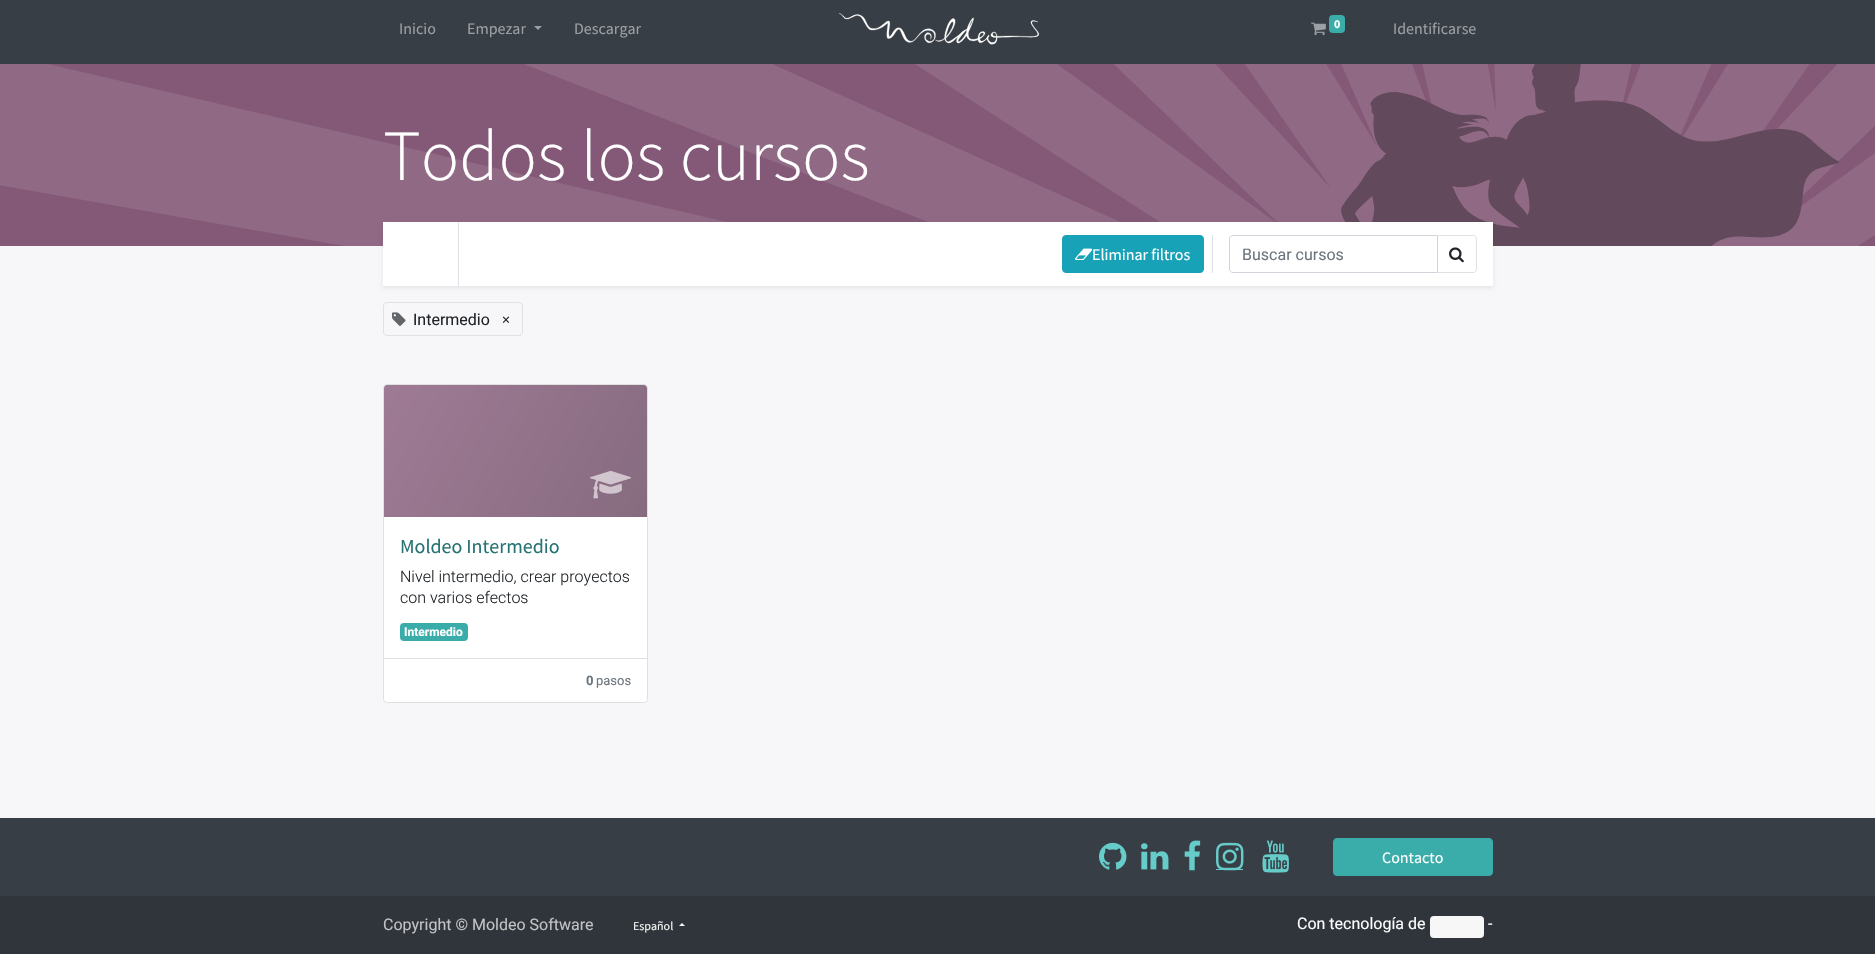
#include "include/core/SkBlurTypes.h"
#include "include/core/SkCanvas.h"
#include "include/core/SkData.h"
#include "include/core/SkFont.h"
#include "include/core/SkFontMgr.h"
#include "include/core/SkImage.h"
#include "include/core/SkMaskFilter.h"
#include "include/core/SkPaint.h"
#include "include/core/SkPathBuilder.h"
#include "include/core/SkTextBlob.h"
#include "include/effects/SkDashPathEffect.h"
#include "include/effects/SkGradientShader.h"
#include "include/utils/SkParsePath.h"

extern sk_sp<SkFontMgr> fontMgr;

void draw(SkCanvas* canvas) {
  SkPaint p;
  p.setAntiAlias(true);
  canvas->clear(SkColorSetRGB(247, 247, 250));
  p.setColor(SkColorSetRGB(56, 62, 69));
  canvas->drawRect(SkRect::MakeLTRB(0, 0, 1875, 64), p);
  p.setColor(SkColorSetRGB(156, 159, 162));
  canvas->drawPath(SkPathBuilder().moveTo(534, 26).lineTo(542, 26).lineTo(538, 30).close().detach(), p);
  canvas->drawImageRect(SkImages::DeferredFromEncodedData(SkData::MakeFromFileName("images/1.png")), SkRect::MakeLTRB(838, 13, 1040, 45), SkSamplingOptions());
  canvas->drawImageRect(SkImages::DeferredFromEncodedData(SkData::MakeFromFileName("images/2.png")), SkRect::MakeLTRB(1311, 22, 1326, 36), SkSamplingOptions());
  p.setColor(SkColorSetRGB(58, 173, 170));
  canvas->drawRoundRect(SkRect::MakeLTRB(1329, 15, 1345, 33), 4, 4, p);
  canvas->drawImageRect(SkImages::DeferredFromEncodedData(SkData::MakeFromFileName("images/3.png")), SkRect::MakeLTRB(0, 64, 1875, 246), SkSamplingOptions());
  p.setColor(SkColorSetARGB(18, 0, 0, 0));
  p.setMaskFilter(SkMaskFilter::MakeBlur(kNormal_SkBlurStyle, 2));
  canvas->drawRect(SkRect::MakeLTRB(383, 224, 1493, 288), p);
  p.setMaskFilter(nullptr);
  p.setColor(SK_ColorWHITE);
  canvas->drawRect(SkRect::MakeLTRB(383, 222, 1493, 286), p);
  p.setColor(SkColorSetRGB(222, 226, 230));
  canvas->drawRect(SkRect::MakeLTRB(458, 222, 459, 286), p);
  p.setColor(SkColorSetRGB(23, 162, 184));
  canvas->drawRoundRect(SkRect::MakeLTRB(1062.5f, 235.5f, 1203.5f, 272.5f), 3.5f, 3.5f, p);
  p.setStyle(SkPaint::kStroke_Style);
  p.setStrokeWidth(1);
  canvas->drawRoundRect(SkRect::MakeLTRB(1062.5f, 235.5f, 1203.5f, 272.5f), 3.5f, 3.5f, p);
  canvas->drawImageRect(SkImages::DeferredFromEncodedData(SkData::MakeFromFileName("images/4.png")), SkRect::MakeLTRB(1075, 248, 1093, 260), SkSamplingOptions());
  p.setStyle(SkPaint::kFill_Style);
  p.setColor(SkColorSetRGB(222, 226, 230));
  canvas->drawRect(SkRect::MakeLTRB(1212, 235, 1213, 273), p);
  p.setStyle(SkPaint::kStroke_Style);
  p.setColor(SkColorSetRGB(206, 212, 218));
  canvas->drawPath(SkPathBuilder().moveTo(1233, 235.5f).lineTo(1437.5f, 235.5f).lineTo(1437.5f, 272.5f).lineTo(1233, 272.5f).cubicTo(1231, 272.5f, 1229.5f, 271, 1229.5f, 269).lineTo(1229.5f, 239).cubicTo(1229.5f, 237, 1231, 235.5f, 1233, 235.5f).close().detach(), p);
  p.setStyle(SkPaint::kFill_Style);
  p.setColor(SkColorSetRGB(222, 226, 230));
  canvas->drawPath(SkPathBuilder(SkPathFillType::kEvenOdd).moveTo(1437, 235).lineTo(1473, 235).cubicTo(1475, 235, 1477, 237, 1477, 239).lineTo(1477, 269).cubicTo(1477, 271, 1475, 273, 1473, 273).lineTo(1437, 273).close().moveTo(1437, 236).lineTo(1473, 236).cubicTo(1475, 236, 1476, 237, 1476, 239).lineTo(1476, 269).cubicTo(1476, 271, 1475, 272, 1473, 272).lineTo(1437, 272).close().detach(), p);
  canvas->drawImageRect(SkImages::DeferredFromEncodedData(SkData::MakeFromFileName("images/5.png")), SkRect::MakeLTRB(1449, 247, 1464, 263), SkSamplingOptions());
  p.setStyle(SkPaint::kStroke_Style);
  canvas->drawRoundRect(SkRect::MakeLTRB(383.5f, 302.5f, 522.5f, 335.5f), 3.5f, 3.5f, p);
  canvas->drawImageRect(SkImages::DeferredFromEncodedData(SkData::MakeFromFileName("images/6.png")), SkRect::MakeLTRB(392, 312, 406, 326), SkSamplingOptions());
  p.setStyle(SkPaint::kFill_Style);
  p.setColor(SK_ColorWHITE);
  canvas->drawRoundRect(SkRect::MakeLTRB(383, 384, 648, 703), 4, 4, p);
  p.setStyle(SkPaint::kStroke_Style);
  p.setColor(SkColorSetARGB(31, 0, 0, 0));
  canvas->drawRoundRect(SkRect::MakeLTRB(383.5f, 384.5f, 647.5f, 702.5f), 3.5f, 3.5f, p);
  p.setStyle(SkPaint::kFill_Style);
  {
    const SkColor colors[] = {SkColorSetARGB(204, 135, 90, 123), SkColorSetARGB(204, 104, 70, 95)};
    const float stops[] = {0, 1};
    const SkPoint ends[] = {{388, 378}, {643, 524}};
    p.setShader(SkGradientShader::MakeLinear(ends, colors, stops, 2, SkTileMode::kClamp));
    p.setAlpha(255);
  }
  canvas->drawPath(SkPathBuilder().moveTo(387, 385).lineTo(644, 385).cubicTo(645.5f, 385, 647, 386.5f, 647, 388).lineTo(647, 517).lineTo(384, 517).lineTo(384, 388).cubicTo(384, 386.5f, 385.5f, 385, 387, 385).close().detach(), p);
  canvas->drawImageRect(SkImages::DeferredFromEncodedData(SkData::MakeFromFileName("images/7.png")), SkRect::MakeLTRB(590, 470, 632, 499), SkSamplingOptions());
  p.setShader(nullptr);
  p.setColor(SkColorSetRGB(58, 173, 170));
  canvas->drawRoundRect(SkRect::MakeLTRB(400, 623, 468, 641), 4, 4, p);
  p.setColor(SK_ColorWHITE);
  canvas->drawPath(SkPathBuilder().moveTo(384, 658).lineTo(647, 658).lineTo(647, 699).cubicTo(647, 700.5f, 645.5f, 702, 644, 702).lineTo(387, 702).cubicTo(385.5f, 702, 384, 700.5f, 384, 699).close().detach(), p);
  p.setColor(SkColorSetRGB(223, 223, 223));
  canvas->drawRect(SkRect::MakeLTRB(384, 658, 647, 659), p);
  p.setColor(SkColorSetRGB(56, 62, 69));
  canvas->drawRect(SkRect::MakeLTRB(0, 818, 1875, 896), p);
  canvas->drawImageRect(SkImages::DeferredFromEncodedData(SkData::MakeFromFileName("images/8.png")), SkRect::MakeLTRB(1099, 842, 1127, 870), SkSamplingOptions());
  canvas->drawImageRect(SkImages::DeferredFromEncodedData(SkData::MakeFromFileName("images/9.png")), SkRect::MakeLTRB(1141, 843, 1169, 870), SkSamplingOptions());
  canvas->drawImageRect(SkImages::DeferredFromEncodedData(SkData::MakeFromFileName("images/10.png")), SkRect::MakeLTRB(1184, 840, 1201, 871), SkSamplingOptions());
  p.setColor(SkColorSetRGB(102, 204, 202));
  canvas->drawRect(SkRect::MakeLTRB(1216, 869, 1243, 870), p);
  canvas->drawImageRect(SkImages::DeferredFromEncodedData(SkData::MakeFromFileName("images/11.png")), SkRect::MakeLTRB(1216, 842, 1244, 871), SkSamplingOptions());
  canvas->drawImageRect(SkImages::DeferredFromEncodedData(SkData::MakeFromFileName("images/12.png")), SkRect::MakeLTRB(1262, 840, 1289, 873), SkSamplingOptions());
  p.setColor(SkColorSetRGB(58, 173, 170));
  canvas->drawRoundRect(SkRect::MakeLTRB(1333.5f, 838.5f, 1492.5f, 875.5f), 3.5f, 3.5f, p);
  p.setStyle(SkPaint::kStroke_Style);
  canvas->drawRoundRect(SkRect::MakeLTRB(1333.5f, 838.5f, 1492.5f, 875.5f), 3.5f, 3.5f, p);
  p.setStyle(SkPaint::kFill_Style);
  p.setColor(SkColorSetRGB(48, 53, 59));
  canvas->drawRect(SkRect::MakeLTRB(0, 896, 1875, 954), p);
  p.setColor(SkColorSetRGB(246, 246, 246));
  canvas->drawPath(SkPathBuilder().moveTo(685, 926).lineTo(679, 926).lineTo(682, 923).close().detach(), p);
  p.setColor(SkColorSetRGB(247, 247, 247));
  canvas->drawRoundRect(SkRect::MakeLTRB(1430, 916, 1484, 938), 4, 4, p);
  SkFont font1(fontMgr->matchFamilyStyle("Source Sans Pro", SkFontStyle::Normal()), 16);
  font1.setSubpixel(true);
  p.setColor(SkColorSetRGB(156, 159, 162));
  canvas->drawString("Inicio", 399, 34, font1, p);
  canvas->drawString("Empezar", 467, 34, font1, p);
  canvas->drawString("Descargar", 574, 34, font1, p);
  SkFont font2(fontMgr->matchFamilyStyle("Source Sans Pro", SkFontStyle::Bold()), 12);
  font2.setSubpixel(true);
  p.setColor(SK_ColorWHITE);
  canvas->drawString("0", 1334, 28, font2, p);
  p.setColor(SkColorSetRGB(156, 159, 162));
  canvas->drawString("Identificarse", 1393, 34, font1, p);
  SkFont font3(fontMgr->matchFamilyStyle("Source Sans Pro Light", SkFontStyle(300, SkFontStyle::kNormal_Width, SkFontStyle::kUpright_Slant)), 72);
  font3.setSubpixel(true);
  p.setColor(SK_ColorWHITE);
  canvas->drawString("Todos los cursos", 383, 180, font3, p);
  canvas->drawString("Eliminar filtros", 1092, 260, font1, p);
  SkFont font4(fontMgr->matchFamilyStyle("Roboto", SkFontStyle::Normal()), 16);
  font4.setSubpixel(true);
  p.setColor(SkColorSetRGB(108, 117, 125));
  canvas->drawString("Buscar cursos", 1242, 260, font4, p);
  p.setColor(SkColorSetRGB(33, 37, 41));
  canvas->drawString("Intermedio", 413, 325, font4, p);
  canvas->drawString("×", 502, 325, font1, p);
  SkFont font5(fontMgr->matchFamilyStyle("Source Sans Pro", SkFontStyle::Normal()), 20);
  font5.setSubpixel(true);
  p.setColor(SkColorSetRGB(38, 115, 114));
  canvas->drawString("Moldeo Intermedio", 400, 553, font5, p);
  SkFont font6(fontMgr->matchFamilyStyle("Roboto", SkFontStyle(300, SkFontStyle::kNormal_Width, SkFontStyle::kUpright_Slant)), 16);
  font6.setSubpixel(true);
  p.setColor(SkColorSetRGB(33, 37, 41));
  canvas->drawString("Nivel intermedio, crear proyectos", 400, 582, font6, p);
  canvas->drawString("con varios efectos", 400, 603, font6, p);
  SkFont font7(fontMgr->matchFamilyStyle("Roboto", SkFontStyle::Bold()), 12);
  font7.setSubpixel(true);
  p.setColor(SK_ColorWHITE);
  canvas->drawString("Intermedio", 404, 636, font7, p);
  SkFont font8(fontMgr->matchFamilyStyle("Roboto", SkFontStyle::Bold()), 13);
  font8.setSubpixel(true);
  p.setColor(SkColorSetRGB(108, 117, 125));
  canvas->drawString("0", 586, 685, font8, p);
  SkFont font9(fontMgr->matchFamilyStyle("Roboto", SkFontStyle::Normal()), 13);
  font9.setSubpixel(true);
  canvas->drawString("pasos", 596, 685, font9, p);
  p.setColor(SK_ColorWHITE);
  canvas->drawString("Contacto", 1382, 863, font1, p);
  p.setColor(SkColorSetRGB(193, 194, 196));
  canvas->drawString("Copyright © Moldeo Software", 383, 930, font4, p);
  SkFont font10(fontMgr->matchFamilyStyle("Source Sans Pro", SkFontStyle::Normal()), 12);
  font10.setSubpixel(true);
  p.setColor(SkColorSetRGB(246, 246, 246));
  canvas->drawString("Español", 633, 930, font10, p);
  p.setColor(SK_ColorWHITE);
  canvas->drawString("Con tecnología de", 1297, 929, font4, p);
  canvas->drawString("-", 1488, 929, font4, p);
}
